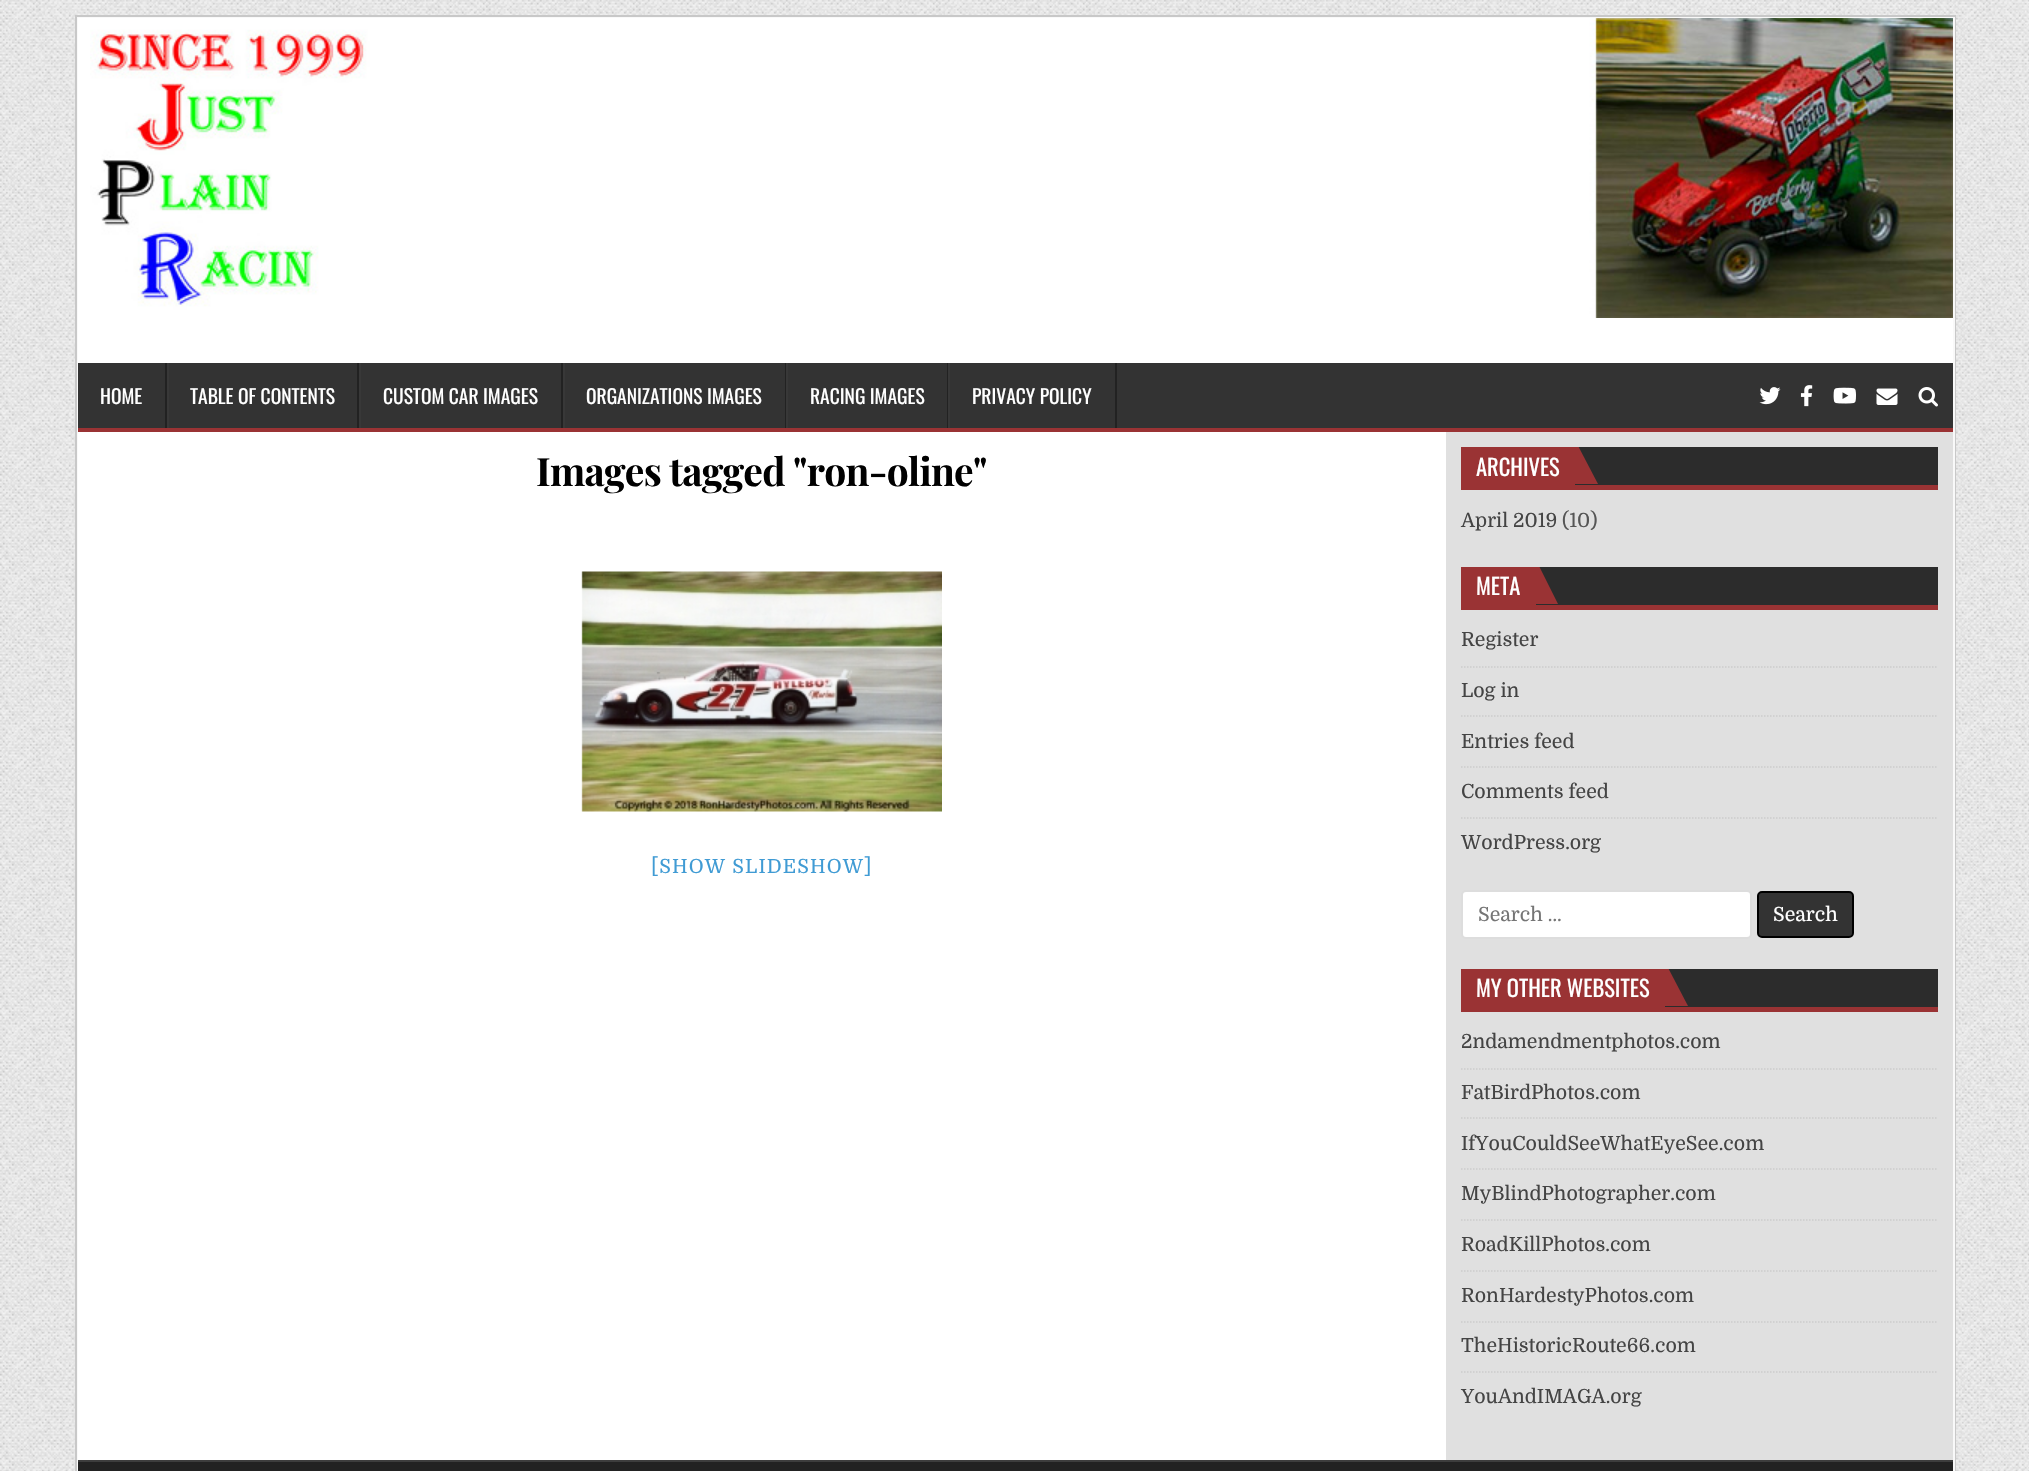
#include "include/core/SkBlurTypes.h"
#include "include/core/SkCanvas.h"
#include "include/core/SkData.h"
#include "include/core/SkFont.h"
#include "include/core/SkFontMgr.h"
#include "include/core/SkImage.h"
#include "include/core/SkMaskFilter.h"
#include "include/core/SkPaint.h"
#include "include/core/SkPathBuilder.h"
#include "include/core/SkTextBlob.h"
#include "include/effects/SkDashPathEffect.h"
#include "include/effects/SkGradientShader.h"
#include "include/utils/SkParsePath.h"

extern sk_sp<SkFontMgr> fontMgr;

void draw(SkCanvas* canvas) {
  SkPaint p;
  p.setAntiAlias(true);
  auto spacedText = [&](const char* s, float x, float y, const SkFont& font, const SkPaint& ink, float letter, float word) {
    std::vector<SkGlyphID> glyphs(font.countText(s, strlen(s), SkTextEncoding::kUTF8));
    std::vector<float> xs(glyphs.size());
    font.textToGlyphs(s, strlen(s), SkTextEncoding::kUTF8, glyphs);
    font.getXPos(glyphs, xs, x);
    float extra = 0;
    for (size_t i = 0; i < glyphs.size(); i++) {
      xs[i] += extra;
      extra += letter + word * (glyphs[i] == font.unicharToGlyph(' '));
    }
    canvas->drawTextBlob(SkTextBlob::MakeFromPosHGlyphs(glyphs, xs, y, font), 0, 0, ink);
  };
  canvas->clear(SK_ColorWHITE);
  canvas->drawImageRect(SkImages::DeferredFromEncodedData(SkData::MakeFromFileName("images/1.png")), SkRect::MakeLTRB(0, 0, 2029, 1471), SkSamplingOptions());
  p.setStyle(SkPaint::kStroke_Style);
  p.setStrokeWidth(2);
  p.setColor(SkColorSetRGB(200, 200, 200));
  canvas->drawRect(SkRect::MakeLTRB(76, 16, 1955, 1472), p);
  p.setColor(SkColorSetRGB(249, 249, 249));
  canvas->drawRect(SkRect::MakeLTRB(78, 18, 1954, 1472), p);
  p.setStyle(SkPaint::kFill_Style);
  p.setColor(SK_ColorWHITE);
  canvas->drawRect(SkRect::MakeLTRB(78, 18, 1953, 363), p);
  canvas->drawImageRect(SkImages::DeferredFromEncodedData(SkData::MakeFromFileName("images/2.png")), SkRect::MakeLTRB(90, 18, 1953, 318), SkSamplingOptions());
  p.setColor(SkColorSetRGB(51, 51, 51));
  canvas->drawRect(SkRect::MakeLTRB(78, 363, 1953, 428), p);
  p.setColor(SkColorSetRGB(154, 51, 52));
  canvas->drawRect(SkRect::MakeLTRB(78, 428, 1953, 432), p);
  p.setColor(SkColorSetRGB(34, 34, 34));
  canvas->drawRect(SkRect::MakeLTRB(165, 363, 167, 428), p);
  canvas->drawRect(SkRect::MakeLTRB(357, 363, 359, 428), p);
  p.setColor(SkColorSetRGB(56, 56, 56));
  canvas->drawRect(SkRect::MakeLTRB(167, 363, 169, 428), p);
  p.setColor(SkColorSetRGB(34, 34, 34));
  canvas->drawRect(SkRect::MakeLTRB(561, 363, 563, 428), p);
  p.setColor(SkColorSetRGB(56, 56, 56));
  canvas->drawRect(SkRect::MakeLTRB(359, 363, 361, 428), p);
  p.setColor(SkColorSetRGB(34, 34, 34));
  canvas->drawRect(SkRect::MakeLTRB(785, 363, 786, 428), p);
  p.setColor(SkColorSetRGB(56, 56, 56));
  canvas->drawRect(SkRect::MakeLTRB(563, 363, 565, 428), p);
  p.setColor(SkColorSetRGB(34, 34, 34));
  canvas->drawRect(SkRect::MakeLTRB(947, 363, 948, 428), p);
  p.setColor(SkColorSetRGB(56, 56, 56));
  canvas->drawRect(SkRect::MakeLTRB(786, 363, 788, 428), p);
  p.setColor(SkColorSetRGB(34, 34, 34));
  canvas->drawRect(SkRect::MakeLTRB(1115, 363, 1117, 428), p);
  p.setColor(SkColorSetRGB(56, 56, 56));
  canvas->drawRect(SkRect::MakeLTRB(948, 363, 950, 428), p);
  canvas->drawImageRect(SkImages::DeferredFromEncodedData(SkData::MakeFromFileName("images/3.png")), SkRect::MakeLTRB(1759, 387, 1781, 405), SkSamplingOptions());
  canvas->drawImageRect(SkImages::DeferredFromEncodedData(SkData::MakeFromFileName("images/4.png")), SkRect::MakeLTRB(1800, 385, 1813, 407), SkSamplingOptions());
  canvas->drawImageRect(SkImages::DeferredFromEncodedData(SkData::MakeFromFileName("images/5.png")), SkRect::MakeLTRB(1833, 387, 1856, 404), SkSamplingOptions());
  canvas->drawImageRect(SkImages::DeferredFromEncodedData(SkData::MakeFromFileName("images/6.png")), SkRect::MakeLTRB(1876, 388, 1898, 405), SkSamplingOptions());
  canvas->drawImageRect(SkImages::DeferredFromEncodedData(SkData::MakeFromFileName("images/7.png")), SkRect::MakeLTRB(1918, 387, 1938, 407), SkSamplingOptions());
  p.setColor(SK_ColorWHITE);
  canvas->drawRect(SkRect::MakeLTRB(78, 432, 1446, 1460), p);
  canvas->drawImageRect(SkImages::DeferredFromEncodedData(SkData::MakeFromFileName("images/8.png")), SkRect::MakeLTRB(581, 571, 942, 812), SkSamplingOptions());
  p.setColor(SkColorSetRGB(224, 224, 224));
  canvas->drawRect(SkRect::MakeLTRB(1446, 432, 1953, 1460), p);
  p.setColor(SkColorSetRGB(44, 44, 44));
  canvas->drawRect(SkRect::MakeLTRB(1575, 447, 1938, 485), p);
  p.setColor(SkColorSetRGB(154, 51, 52));
  canvas->drawRect(SkRect::MakeLTRB(1461, 485, 1938, 490), p);
  canvas->drawRect(SkRect::MakeLTRB(1461, 447, 1575, 485), p);
  canvas->save();
  canvas->clipRect(SkRect::MakeLTRB(1461, 447, 1938, 485));
  canvas->drawPath(SkPathBuilder().moveTo(1575, 484).lineTo(1575, 440).lineTo(1598, 484).close().detach(), p);
  canvas->restore();
  p.setColor(SkColorSetRGB(44, 44, 44));
  canvas->drawRect(SkRect::MakeLTRB(1536, 567, 1938, 605), p);
  p.setColor(SkColorSetRGB(154, 51, 52));
  canvas->drawRect(SkRect::MakeLTRB(1461, 605, 1938, 610), p);
  canvas->drawRect(SkRect::MakeLTRB(1461, 567, 1536, 605), p);
  canvas->save();
  canvas->clipRect(SkRect::MakeLTRB(1461, 567, 1938, 605));
  canvas->drawPath(SkPathBuilder().moveTo(1536, 604).lineTo(1536, 560).lineTo(1558, 604).close().detach(), p);
  canvas->restore();
  p.setStyle(SkPaint::kStroke_Style);
  p.setStrokeWidth(1.5f);
  p.setColor(SkColorSetRGB(204, 204, 204));
  p.setPathEffect(SkDashPathEffect::Make({{1.5f, 1.5f}}, 0));
  canvas->drawPath(SkPathBuilder().moveTo(1461, 667).lineTo(1938, 667).detach(), p);
  p.setPathEffect(nullptr);
  p.setPathEffect(SkDashPathEffect::Make({{1.5f, 1.5f}}, 0));
  canvas->drawPath(SkPathBuilder().moveTo(1461, 716).lineTo(1938, 716).detach(), p);
  p.setPathEffect(nullptr);
  p.setPathEffect(SkDashPathEffect::Make({{1.5f, 1.5f}}, 0));
  canvas->drawPath(SkPathBuilder().moveTo(1461, 767).lineTo(1938, 767).detach(), p);
  p.setPathEffect(nullptr);
  p.setPathEffect(SkDashPathEffect::Make({{1.5f, 1.5f}}, 0));
  canvas->drawPath(SkPathBuilder().moveTo(1461, 818).lineTo(1938, 818).detach(), p);
  p.setPathEffect(nullptr);
  p.setStyle(SkPaint::kFill_Style);
  p.setColor(SK_ColorWHITE);
  canvas->drawRoundRect(SkRect::MakeLTRB(1462, 891, 1751, 938), 4, 4, p);
  p.setStyle(SkPaint::kStroke_Style);
  p.setStrokeWidth(2);
  p.setColor(SkColorSetRGB(221, 221, 221));
  canvas->drawRoundRect(SkRect::MakeLTRB(1462, 891, 1751, 938), 4, 4, p);
  p.setStyle(SkPaint::kFill_Style);
  p.setColor(SkColorSetRGB(51, 51, 51));
  canvas->drawRoundRect(SkRect::MakeLTRB(1758, 892, 1853, 937), 4, 4, p);
  p.setStyle(SkPaint::kStroke_Style);
  p.setColor(SK_ColorBLACK);
  canvas->drawRoundRect(SkRect::MakeLTRB(1758, 892, 1853, 937), 4, 4, p);
  p.setStyle(SkPaint::kFill_Style);
  p.setColor(SkColorSetRGB(44, 44, 44));
  canvas->drawRect(SkRect::MakeLTRB(1665, 969, 1938, 1007), p);
  p.setColor(SkColorSetRGB(154, 51, 52));
  canvas->drawRect(SkRect::MakeLTRB(1461, 1007, 1938, 1012), p);
  canvas->drawRect(SkRect::MakeLTRB(1461, 969, 1665, 1007), p);
  canvas->save();
  canvas->clipRect(SkRect::MakeLTRB(1461, 969, 1938, 1007));
  canvas->drawPath(SkPathBuilder().moveTo(1665, 1006).lineTo(1665, 962).lineTo(1688, 1006).close().detach(), p);
  canvas->restore();
  p.setStyle(SkPaint::kStroke_Style);
  p.setStrokeWidth(1.5f);
  p.setColor(SkColorSetRGB(204, 204, 204));
  p.setPathEffect(SkDashPathEffect::Make({{1.5f, 1.5f}}, 0));
  canvas->drawPath(SkPathBuilder().moveTo(1461, 1069).lineTo(1938, 1069).detach(), p);
  p.setPathEffect(nullptr);
  p.setPathEffect(SkDashPathEffect::Make({{1.5f, 1.5f}}, 0));
  canvas->drawPath(SkPathBuilder().moveTo(1461, 1118).lineTo(1938, 1118).detach(), p);
  p.setPathEffect(nullptr);
  p.setPathEffect(SkDashPathEffect::Make({{1.5f, 1.5f}}, 0));
  canvas->drawPath(SkPathBuilder().moveTo(1461, 1169).lineTo(1938, 1169).detach(), p);
  p.setPathEffect(nullptr);
  p.setPathEffect(SkDashPathEffect::Make({{1.5f, 1.5f}}, 0));
  canvas->drawPath(SkPathBuilder().moveTo(1461, 1220).lineTo(1938, 1220).detach(), p);
  p.setPathEffect(nullptr);
  p.setPathEffect(SkDashPathEffect::Make({{1.5f, 1.5f}}, 0));
  canvas->drawPath(SkPathBuilder().moveTo(1461, 1271).lineTo(1938, 1271).detach(), p);
  p.setPathEffect(nullptr);
  p.setPathEffect(SkDashPathEffect::Make({{1.5f, 1.5f}}, 0));
  canvas->drawPath(SkPathBuilder().moveTo(1461, 1322).lineTo(1938, 1322).detach(), p);
  p.setPathEffect(nullptr);
  p.setPathEffect(SkDashPathEffect::Make({{1.5f, 1.5f}}, 0));
  canvas->drawPath(SkPathBuilder().moveTo(1461, 1372).lineTo(1938, 1372).detach(), p);
  p.setPathEffect(nullptr);
  p.setStyle(SkPaint::kFill_Style);
  p.setColor(SkColorSetRGB(34, 34, 34));
  canvas->drawRect(SkRect::MakeLTRB(78, 1462, 1953, 1471), p);
  p.setColor(SkColorSetRGB(61, 61, 61));
  canvas->drawRect(SkRect::MakeLTRB(78, 1460, 1953, 1462), p);
  SkFont font1(fontMgr->matchFamilyStyle("Oswald", SkFontStyle::Normal()), 19.5f);
  font1.setSubpixel(true);
  p.setColor(SK_ColorWHITE);
  canvas->drawString("HOME", 100, 404, font1, p);
  canvas->drawString("TABLE OF CONTENTS", 190, 404, font1, p);
  canvas->drawString("CUSTOM CAR IMAGES", 383, 404, font1, p);
  canvas->drawString("ORGANIZATIONS IMAGES", 586, 404, font1, p);
  canvas->drawString("RACING IMAGES", 810, 404, font1, p);
  canvas->drawString("PRIVACY POLICY", 972, 404, font1, p);
  SkFont font2(fontMgr->matchFamilyStyle("Playfair Display", SkFontStyle::Bold()), 39);
  font2.setSubpixel(true);
  p.setColor(SK_ColorBLACK);
  spacedText("Images tagged \"ron-oline\"", 536, 486, font2, p, -0.75f, 0);
  SkFont font3(fontMgr->matchFamilyStyle("Domine", SkFontStyle::Normal()), 19.5f);
  font3.setSubpixel(true);
  p.setColor(SkColorSetRGB(64, 155, 212));
  spacedText("[SHOW SLIDESHOW]", 651, 873, font3, p, 1.1f, 0);
  SkFont font4(fontMgr->matchFamilyStyle("Oswald", SkFontStyle::Normal()), 22.5f);
  font4.setSubpixel(true);
  p.setColor(SK_ColorWHITE);
  canvas->drawString("ARCHIVES", 1476, 476, font4, p);
  p.setColor(SkColorSetRGB(68, 68, 68));
  canvas->drawString("April 2019", 1461, 527, font3, p);
  p.setColor(SkColorSetRGB(85, 85, 85));
  canvas->drawString("(10)", 1562, 527, font3, p);
  p.setColor(SK_ColorWHITE);
  canvas->drawString("META", 1476, 595, font4, p);
  p.setColor(SkColorSetRGB(68, 68, 68));
  canvas->drawString("Register", 1461, 646, font3, p);
  canvas->drawString("Log in", 1461, 697, font3, p);
  canvas->drawString("Entries feed", 1461, 748, font3, p);
  canvas->drawString("Comments feed", 1461, 798, font3, p);
  canvas->drawString("WordPress.org", 1461, 849, font3, p);
  p.setColor(SkColorSetRGB(117, 117, 117));
  canvas->drawString("Search …", 1478, 921, font3, p);
  p.setColor(SK_ColorWHITE);
  canvas->drawString("Search", 1773, 921, font3, p);
  canvas->drawString("MY OTHER WEBSITES", 1476, 997, font4, p);
  p.setColor(SkColorSetRGB(68, 68, 68));
  canvas->drawString("2ndamendmentphotos.com", 1461, 1048, font3, p);
  canvas->drawString("FatBirdPhotos.com", 1461, 1099, font3, p);
  canvas->drawString("IfYouCouldSeeWhatEyeSee.com", 1461, 1150, font3, p);
  canvas->drawString("MyBlindPhotographer.com", 1461, 1200, font3, p);
  canvas->drawString("RoadKillPhotos.com", 1461, 1251, font3, p);
  canvas->drawString("RonHardestyPhotos.com", 1461, 1302, font3, p);
  canvas->drawString("TheHistoricRoute66.com", 1461, 1352, font3, p);
  canvas->drawString("YouAndIMAGA.org", 1461, 1403, font3, p);
}
